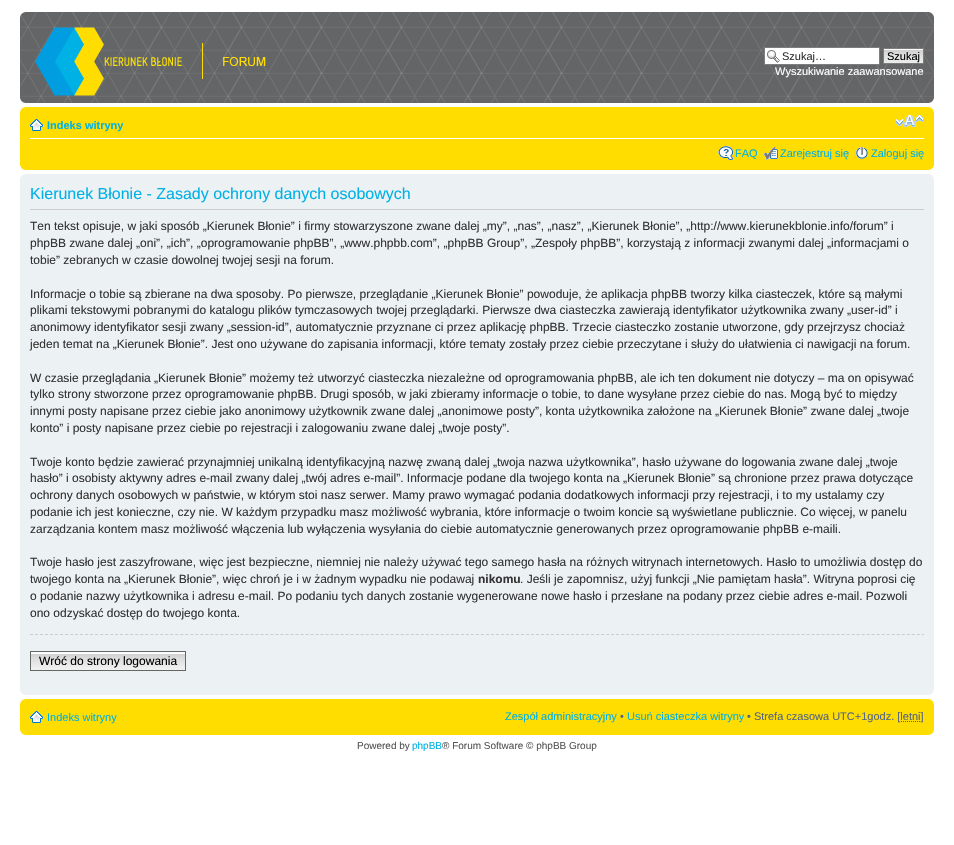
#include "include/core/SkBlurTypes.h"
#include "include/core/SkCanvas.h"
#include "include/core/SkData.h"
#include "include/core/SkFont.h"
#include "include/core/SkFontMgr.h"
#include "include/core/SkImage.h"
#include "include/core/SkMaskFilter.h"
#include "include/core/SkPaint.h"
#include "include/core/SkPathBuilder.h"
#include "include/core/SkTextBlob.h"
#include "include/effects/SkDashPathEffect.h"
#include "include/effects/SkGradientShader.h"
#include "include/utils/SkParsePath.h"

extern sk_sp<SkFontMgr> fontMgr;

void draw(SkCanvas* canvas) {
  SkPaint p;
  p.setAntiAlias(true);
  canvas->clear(SK_ColorWHITE);
  canvas->drawImageRect(SkImages::DeferredFromEncodedData(SkData::MakeFromFileName("images/1.png")), SkRect::MakeLTRB(20, 12, 934, 103), SkSamplingOptions());
  canvas->drawImageRect(SkImages::DeferredFromEncodedData(SkData::MakeFromFileName("images/2.png")), SkRect::MakeLTRB(20, 12, 25, 17), SkSamplingOptions());
  canvas->drawImageRect(SkImages::DeferredFromEncodedData(SkData::MakeFromFileName("images/3.png")), SkRect::MakeLTRB(929, 12, 934, 17), SkSamplingOptions());
  canvas->drawImageRect(SkImages::DeferredFromEncodedData(SkData::MakeFromFileName("images/4.png")), SkRect::MakeLTRB(35, 27, 266, 96), SkSamplingOptions());
  p.setColor(SK_ColorWHITE);
  canvas->drawRect(SkRect::MakeLTRB(765, 48, 879, 64), p);
  canvas->drawImageRect(SkImages::DeferredFromEncodedData(SkData::MakeFromFileName("images/5.png")), SkRect::MakeLTRB(767, 50, 780, 63), SkSamplingOptions());
  p.setStyle(SkPaint::kStroke_Style);
  p.setStrokeWidth(1);
  p.setColor(SkColorSetRGB(124, 125, 126));
  canvas->drawRect(SkRect::MakeLTRB(764.5f, 47.5f, 879.5f, 64.5f), p);
  canvas->drawImageRect(SkImages::DeferredFromEncodedData(SkData::MakeFromFileName("images/6.png")), SkRect::MakeLTRB(884, 49, 923, 63), SkSamplingOptions());
  canvas->drawRect(SkRect::MakeLTRB(883.5f, 48.5f, 923.5f, 63.5f), p);
  canvas->drawImageRect(SkImages::DeferredFromEncodedData(SkData::MakeFromFileName("images/7.png")), SkRect::MakeLTRB(20, 98, 25, 103), SkSamplingOptions());
  canvas->drawImageRect(SkImages::DeferredFromEncodedData(SkData::MakeFromFileName("images/8.png")), SkRect::MakeLTRB(929, 98, 934, 103), SkSamplingOptions());
  p.setStyle(SkPaint::kFill_Style);
  p.setColor(SkColorSetRGB(255, 221, 0));
  canvas->drawRect(SkRect::MakeLTRB(20, 107, 934, 170), p);
  canvas->drawImageRect(SkImages::DeferredFromEncodedData(SkData::MakeFromFileName("images/9.png")), SkRect::MakeLTRB(20, 107, 26, 112), SkSamplingOptions());
  canvas->drawImageRect(SkImages::DeferredFromEncodedData(SkData::MakeFromFileName("images/10.png")), SkRect::MakeLTRB(928, 107, 934, 112), SkSamplingOptions());
  p.setColor(SK_ColorWHITE);
  canvas->drawRect(SkRect::MakeLTRB(30, 138, 924, 139), p);
  canvas->drawImageRect(SkImages::DeferredFromEncodedData(SkData::MakeFromFileName("images/11.png")), SkRect::MakeLTRB(30, 119, 43, 131), SkSamplingOptions());
  canvas->drawImageRect(SkImages::DeferredFromEncodedData(SkData::MakeFromFileName("images/12.png")), SkRect::MakeLTRB(895, 115, 924, 127), SkSamplingOptions());
  canvas->drawImageRect(SkImages::DeferredFromEncodedData(SkData::MakeFromFileName("images/13.png")), SkRect::MakeLTRB(718, 146, 734, 160), SkSamplingOptions());
  canvas->drawImageRect(SkImages::DeferredFromEncodedData(SkData::MakeFromFileName("images/14.png")), SkRect::MakeLTRB(764, 147, 778, 160), SkSamplingOptions());
  canvas->drawImageRect(SkImages::DeferredFromEncodedData(SkData::MakeFromFileName("images/15.png")), SkRect::MakeLTRB(856, 147, 868, 159), SkSamplingOptions());
  canvas->drawImageRect(SkImages::DeferredFromEncodedData(SkData::MakeFromFileName("images/16.png")), SkRect::MakeLTRB(20, 165, 25, 170), SkSamplingOptions());
  canvas->drawImageRect(SkImages::DeferredFromEncodedData(SkData::MakeFromFileName("images/17.png")), SkRect::MakeLTRB(929, 165, 934, 170), SkSamplingOptions());
  p.setColor(SkColorSetRGB(236, 241, 243));
  canvas->drawRect(SkRect::MakeLTRB(20, 174, 934, 695), p);
  canvas->drawImageRect(SkImages::DeferredFromEncodedData(SkData::MakeFromFileName("images/18.png")), SkRect::MakeLTRB(20, 174, 25, 179), SkSamplingOptions());
  canvas->drawImageRect(SkImages::DeferredFromEncodedData(SkData::MakeFromFileName("images/19.png")), SkRect::MakeLTRB(929, 174, 934, 179), SkSamplingOptions());
  p.setColor(SkColorSetRGB(204, 204, 204));
  canvas->drawRect(SkRect::MakeLTRB(30, 209, 924, 210), p);
  p.setStyle(SkPaint::kStroke_Style);
  p.setPathEffect(SkDashPathEffect::Make({{3, 2.01f}}, 0));
  canvas->drawPath(SkPathBuilder().moveTo(30, 634.5f).lineTo(924, 634.5f).detach(), p);
  p.setPathEffect(nullptr);
  canvas->drawImageRect(SkImages::DeferredFromEncodedData(SkData::MakeFromFileName("images/20.png")), SkRect::MakeLTRB(31, 653, 185, 670), SkSamplingOptions());
  p.setStyle(SkPaint::kFill_Style);
  p.setColor(SkColorSetRGB(250, 250, 250));
  canvas->drawRect(SkRect::MakeLTRB(31, 652, 185, 653), p);
  p.setStyle(SkPaint::kStroke_Style);
  p.setColor(SkColorSetRGB(102, 102, 102));
  canvas->drawRect(SkRect::MakeLTRB(30.5f, 651.5f, 185.5f, 670.5f), p);
  canvas->drawImageRect(SkImages::DeferredFromEncodedData(SkData::MakeFromFileName("images/21.png")), SkRect::MakeLTRB(20, 690, 25, 695), SkSamplingOptions());
  canvas->drawImageRect(SkImages::DeferredFromEncodedData(SkData::MakeFromFileName("images/22.png")), SkRect::MakeLTRB(929, 690, 934, 695), SkSamplingOptions());
  p.setStyle(SkPaint::kFill_Style);
  p.setColor(SkColorSetRGB(255, 221, 0));
  canvas->drawRect(SkRect::MakeLTRB(20, 699, 934, 735), p);
  canvas->drawImageRect(SkImages::DeferredFromEncodedData(SkData::MakeFromFileName("images/9.png")), SkRect::MakeLTRB(20, 699, 26, 704), SkSamplingOptions());
  canvas->drawImageRect(SkImages::DeferredFromEncodedData(SkData::MakeFromFileName("images/10.png")), SkRect::MakeLTRB(928, 699, 934, 704), SkSamplingOptions());
  canvas->drawImageRect(SkImages::DeferredFromEncodedData(SkData::MakeFromFileName("images/11.png")), SkRect::MakeLTRB(30, 711, 43, 723), SkSamplingOptions());
  p.setStyle(SkPaint::kStroke_Style);
  p.setColor(SkColorSetRGB(83, 100, 130));
  p.setPathEffect(SkDashPathEffect::Make({{1, 1}}, 0));
  canvas->drawPath(SkPathBuilder().moveTo(901, 721.5f).lineTo(921, 721.5f).detach(), p);
  p.setPathEffect(nullptr);
  canvas->drawImageRect(SkImages::DeferredFromEncodedData(SkData::MakeFromFileName("images/16.png")), SkRect::MakeLTRB(20, 730, 25, 735), SkSamplingOptions());
  canvas->drawImageRect(SkImages::DeferredFromEncodedData(SkData::MakeFromFileName("images/17.png")), SkRect::MakeLTRB(929, 730, 934, 735), SkSamplingOptions());
  SkFont font1(fontMgr->matchFamilyStyle("Liberation Sans", SkFontStyle::Normal()), 11);
  font1.setSubpixel(true);
  p.setStyle(SkPaint::kFill_Style);
  p.setColor(SkColorSetRGB(51, 51, 51));
  canvas->drawString("Szukaj…", 782, 60, font1, p);
  p.setColor(SK_ColorBLACK);
  canvas->drawString("Szukaj", 887, 60, font1, p);
  p.setColor(SK_ColorWHITE);
  canvas->drawString("Wyszukiwanie zaawansowane", 775, 75, font1, p);
  SkFont font2(fontMgr->matchFamilyStyle("Liberation Sans", SkFontStyle::Bold()), 11);
  font2.setSubpixel(true);
  p.setColor(SkColorSetRGB(0, 177, 230));
  canvas->drawString("Indeks witryny", 47, 129, font2, p);
  canvas->drawString("FAQ", 735, 157, font1, p);
  canvas->drawString("Zarejestruj się", 780, 157, font1, p);
  canvas->drawString("Zaloguj się", 871, 157, font1, p);
  SkFont font3(fontMgr->matchFamilyStyle("Liberation Sans", SkFontStyle::Normal()), 16);
  font3.setSubpixel(true);
  canvas->drawString("Kierunek Błonie - Zasady ochrony danych osobowych", 30, 199, font3, p);
  SkFont font4(fontMgr->matchFamilyStyle("Liberation Sans", SkFontStyle::Normal()), 12);
  font4.setSubpixel(true);
  p.setColor(SkColorSetRGB(51, 51, 51));
  canvas->drawString("Ten tekst opisuje, w jaki sposób „Kierunek Błonie” i firmy stowarzyszone zwane dalej „my”, „nas”, „nasz”, „Kierunek Błonie”, „http://www.kierunekblonie.info/forum” i", 30, 230, font4, p);
  canvas->drawString("phpBB zwane dalej „oni”, „ich”, „oprogramowanie phpBB”, „www.phpbb.com”, „phpBB Group”, „Zespoły phpBB”, korzystają z informacji zwanymi dalej „informacjami o", 30, 247, font4, p);
  canvas->drawString("tobie” zebranych w czasie dowolnej twojej sesji na forum.", 30, 264, font4, p);
  canvas->drawString("Informacje o tobie są zbierane na dwa sposoby. Po pierwsze, przeglądanie „Kierunek Błonie” powoduje, że aplikacja phpBB tworzy kilka ciasteczek, które są małymi", 30, 298, font4, p);
  canvas->drawString("plikami tekstowymi pobranymi do katalogu plików tymczasowych twojej przeglądarki. Pierwsze dwa ciasteczka zawierają identyfikator użytkownika zwany „user-id” i", 30, 314, font4, p);
  canvas->drawString("anonimowy identyfikator sesji zwany „session-id”, automatycznie przyznane ci przez aplikację phpBB. Trzecie ciasteczko zostanie utworzone, gdy przejrzysz chociaż", 30, 331, font4, p);
  canvas->drawString("jeden temat na „Kierunek Błonie”. Jest ono używane do zapisania informacji, które tematy zostały przez ciebie przeczytane i służy do ułatwienia ci nawigacji na forum.", 30, 348, font4, p);
  canvas->drawString("W czasie przeglądania „Kierunek Błonie” możemy też utworzyć ciasteczka niezależne od oprogramowania phpBB, ale ich ten dokument nie dotyczy – ma on opisywać", 30, 382, font4, p);
  canvas->drawString("tylko strony stworzone przez oprogramowanie phpBB. Drugi sposób, w jaki zbieramy informacje o tobie, to dane wysyłane przez ciebie do nas. Mogą być to między", 30, 398, font4, p);
  canvas->drawString("innymi posty napisane przez ciebie jako anonimowy użytkownik zwane dalej „anonimowe posty”, konta użytkownika założone na „Kierunek Błonie” zwane dalej „twoje", 30, 415, font4, p);
  canvas->drawString("konto” i posty napisane przez ciebie po rejestracji i zalogowaniu zwane dalej „twoje posty”.", 30, 432, font4, p);
  canvas->drawString("Twoje konto będzie zawierać przynajmniej unikalną identyfikacyjną nazwę zwaną dalej „twoja nazwa użytkownika”, hasło używane do logowania zwane dalej „twoje", 30, 466, font4, p);
  canvas->drawString("hasło” i osobisty aktywny adres e-mail zwany dalej „twój adres e-mail”. Informacje podane dla twojego konta na „Kierunek Błonie” są chronione przez prawa dotyczące", 30, 482, font4, p);
  canvas->drawString("ochrony danych osobowych w państwie, w którym stoi nasz serwer. Mamy prawo wymagać podania dodatkowych informacji przy rejestracji, i to my ustalamy czy", 30, 499, font4, p);
  canvas->drawString("podanie ich jest konieczne, czy nie. W każdym przypadku masz możliwość wybrania, które informacje o twoim koncie są wyświetlane publicznie. Co więcej, w panelu", 30, 516, font4, p);
  canvas->drawString("zarządzania kontem masz możliwość włączenia lub wyłączenia wysyłania do ciebie automatycznie generowanych przez oprogramowanie phpBB e-maili.", 30, 533, font4, p);
  canvas->drawString("Twoje hasło jest zaszyfrowane, więc jest bezpieczne, niemniej nie należy używać tego samego hasła na różnych witrynach internetowych. Hasło to umożliwia dostęp do", 30, 566, font4, p);
  canvas->drawString("twojego konta na „Kierunek Błonie”, więc chroń je i w żadnym wypadku nie podawaj", 30, 583, font4, p);
  SkFont font5(fontMgr->matchFamilyStyle("Liberation Sans", SkFontStyle::Bold()), 12);
  font5.setSubpixel(true);
  canvas->drawString("nikomu", 478, 583, font5, p);
  canvas->drawString(". Jeśli je zapomnisz, użyj funkcji „Nie pamiętam hasła”. Witryna poprosi cię", 520, 583, font4, p);
  canvas->drawString("o podanie nazwy użytkownika i adresu e-mail. Po podaniu tych danych zostanie wygenerowane nowe hasło i przesłane na podany przez ciebie adres e-mail. Pozwoli", 30, 600, font4, p);
  canvas->drawString("ono odzyskać dostęp do twojego konta.", 30, 617, font4, p);
  p.setColor(SK_ColorBLACK);
  canvas->drawString("Wróć do strony logowania", 39, 665, font4, p);
  p.setColor(SkColorSetRGB(0, 177, 230));
  canvas->drawString("Indeks witryny", 47, 721, font1, p);
  canvas->drawString("Zespół administracyjny", 505, 720, font1, p);
  p.setColor(SkColorSetRGB(83, 100, 130));
  canvas->drawString("•", 620, 720, font1, p);
  p.setColor(SkColorSetRGB(0, 177, 230));
  canvas->drawString("Usuń ciasteczka witryny", 627, 720, font1, p);
  p.setColor(SkColorSetRGB(83, 100, 130));
  canvas->drawString("• Strefa czasowa UTC+1godz. [letni]", 747, 720, font1, p);
  SkFont font6(fontMgr->matchFamilyStyle("Liberation Sans", SkFontStyle::Normal()), 10);
  font6.setSubpixel(true);
  p.setColor(SkColorSetRGB(85, 85, 85));
  canvas->drawString("Powered by", 357, 749, font6, p);
  p.setColor(SkColorSetRGB(0, 177, 230));
  canvas->drawString("phpBB", 412, 749, font6, p);
  p.setColor(SkColorSetRGB(85, 85, 85));
  canvas->drawString("® Forum Software © phpBB Group", 442, 749, font6, p);
}
